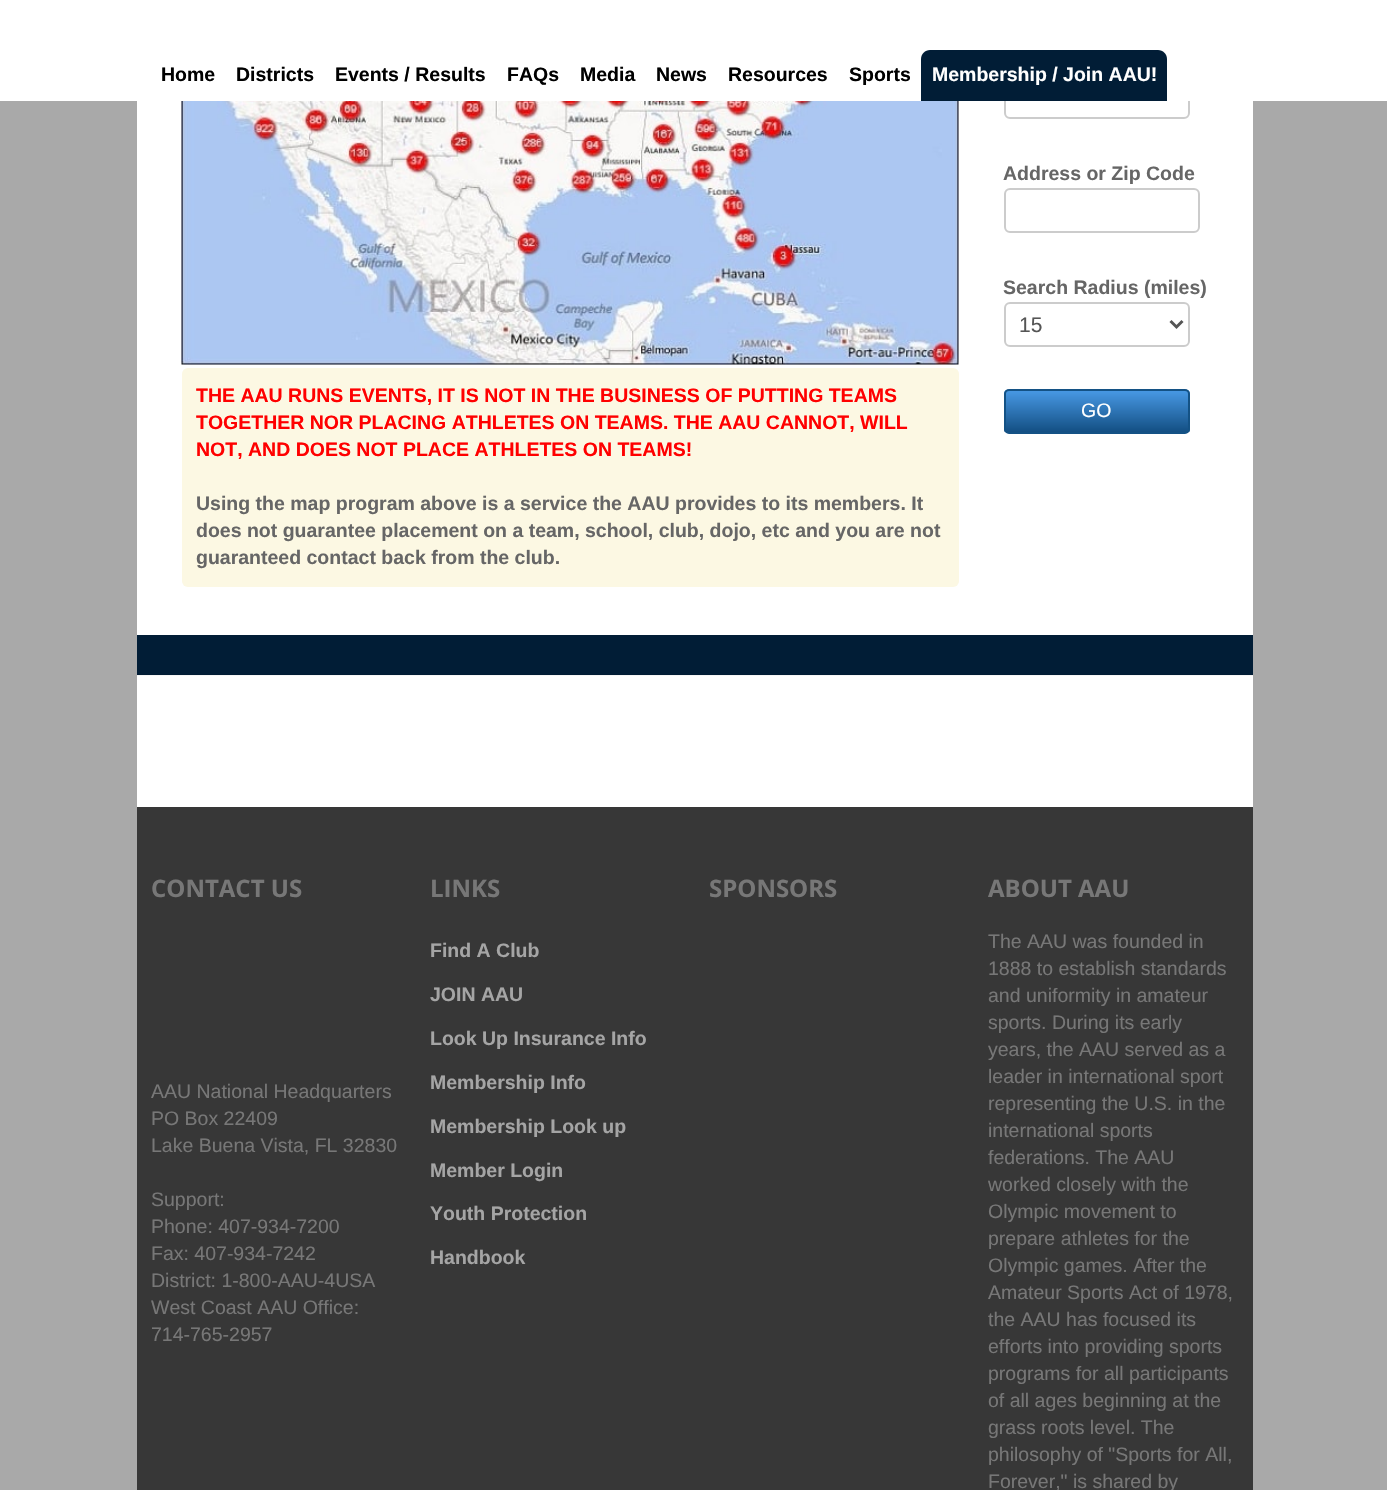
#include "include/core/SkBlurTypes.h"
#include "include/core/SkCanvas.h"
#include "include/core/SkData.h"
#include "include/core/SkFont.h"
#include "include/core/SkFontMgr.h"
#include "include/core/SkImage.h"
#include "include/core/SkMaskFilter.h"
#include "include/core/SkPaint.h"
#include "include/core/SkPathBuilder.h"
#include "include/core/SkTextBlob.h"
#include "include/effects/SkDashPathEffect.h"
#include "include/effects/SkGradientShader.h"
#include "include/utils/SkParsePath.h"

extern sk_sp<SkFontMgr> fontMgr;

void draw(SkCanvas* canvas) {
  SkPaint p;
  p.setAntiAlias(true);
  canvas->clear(SkColorSetRGB(169, 169, 169));
  p.setColor(SK_ColorWHITE);
  canvas->drawRect(SkRect::MakeLTRB(137, 101, 1253, 807), p);
  p.setColor(SkColorSetRGB(245, 245, 245));
  canvas->drawRect(SkRect::MakeLTRB(137, 675, 1253, 676), p);
  p.setStyle(SkPaint::kStroke_Style);
  p.setStrokeWidth(2);
  p.setColor(SkColorSetRGB(204, 204, 204));
  canvas->drawRoundRect(SkRect::MakeLTRB(1005, 75, 1189, 118), 5, 5, p);
  p.setStyle(SkPaint::kFill_Style);
  p.setColor(SK_ColorWHITE);
  canvas->drawRect(SkRect::MakeLTRB(0, 0, 1387, 101), p);
  p.setColor(SkColorSetRGB(1, 29, 54));
  canvas->drawPath(SkPathBuilder().moveTo(930, 50).lineTo(1158, 50).cubicTo(1163, 50, 1167, 54, 1167, 59).lineTo(1167, 101).lineTo(921, 101).lineTo(921, 59).cubicTo(921, 54, 925, 50, 930, 50).close().detach(), p);
  p.setStyle(SkPaint::kStroke_Style);
  p.setColor(SkColorSetRGB(204, 204, 204));
  canvas->drawRoundRect(SkRect::MakeLTRB(1005, 189, 1199, 232), 5, 5, p);
  canvas->drawRoundRect(SkRect::MakeLTRB(1005, 303, 1189, 346), 5, 5, p);
  p.setStrokeWidth(3);
  p.setColor(SkColorSetRGB(85, 85, 85));
  canvas->drawPath(SkPathBuilder().moveTo(1170.5f, 321).lineTo(1176.5f, 327).lineTo(1182.5f, 321).detach(), p);
  canvas->save();
  canvas->clipPath(SkPathBuilder().moveTo(1009, 389).lineTo(1185, 389).cubicTo(1188, 389, 1190, 391, 1190, 394).lineTo(1190, 429).cubicTo(1190, 432, 1188, 434, 1185, 434).lineTo(1009, 434).cubicTo(1006, 434, 1004, 432, 1004, 429).lineTo(1004, 394).cubicTo(1004, 391, 1006, 389, 1009, 389).close().detach(), true);
  p.setStyle(SkPaint::kFill_Style);
  {
    const SkColor colors[] = {SkColorSetRGB(70, 150, 225), SkColorSetRGB(19, 79, 131)};
    const float stops[] = {0.05f, 1};
    const SkPoint ends[] = {{1097, 390}, {1097, 432}};
    p.setShader(SkGradientShader::MakeLinear(ends, colors, stops, 2, SkTileMode::kClamp));
    p.setAlpha(255);
  }
  canvas->drawRect(SkRect::MakeLTRB(1004, 390, 1190, 432), p);
  canvas->restore();
  p.setStyle(SkPaint::kStroke_Style);
  p.setStrokeWidth(2);
  p.setShader(nullptr);
  p.setColor(SkColorSetRGB(20, 82, 133));
  canvas->drawRoundRect(SkRect::MakeLTRB(1005, 390, 1189, 433), 4, 4, p);
  canvas->drawImageRect(SkImages::DeferredFromEncodedData(SkData::MakeFromFileName("images/1.png")), SkRect::MakeLTRB(181, 101, 959, 365), SkSamplingOptions());
  p.setStyle(SkPaint::kFill_Style);
  p.setColor(SkColorSetRGB(252, 248, 227));
  canvas->drawRoundRect(SkRect::MakeLTRB(182, 368, 959, 587), 6, 6, p);
  p.setColor(SkColorSetRGB(1, 29, 54));
  canvas->drawRect(SkRect::MakeLTRB(137, 635, 1253, 674), p);
  p.setColor(SkColorSetRGB(1, 28, 52));
  canvas->drawRect(SkRect::MakeLTRB(137, 674, 1253, 675), p);
  p.setColor(SkColorSetRGB(55, 55, 55));
  canvas->drawRect(SkRect::MakeLTRB(137, 807, 1253, 1490), p);
  SkFont font1(fontMgr->matchFamilyStyle("Liberation Sans", SkFontStyle::Bold()), 19.5f);
  font1.setSubpixel(true);
  p.setColor(SK_ColorBLACK);
  canvas->drawString("Home", 161, 81, font1, p);
  canvas->drawString("Districts", 236, 81, font1, p);
  canvas->drawString("Events / Results", 335, 81, font1, p);
  canvas->drawString("FAQs", 507, 81, font1, p);
  canvas->drawString("Media", 580, 81, font1, p);
  canvas->drawString("News", 656, 81, font1, p);
  canvas->drawString("Resources", 728, 81, font1, p);
  canvas->drawString("Sports", 849, 81, font1, p);
  p.setColor(SK_ColorWHITE);
  canvas->drawString("Membership / Join AAU!", 932, 81, font1, p);
  p.setColor(SkColorSetRGB(102, 102, 102));
  canvas->drawString("Address or Zip Code", 1003, 180, font1, p);
  canvas->drawString("Search Radius (miles)", 1003, 294, font1, p);
  SkFont font2(fontMgr->matchFamilyStyle("Liberation Sans", SkFontStyle::Normal()), 21);
  font2.setSubpixel(true);
  p.setColor(SkColorSetRGB(85, 85, 85));
  canvas->drawString("15", 1019, 332, font2, p);
  SkFont font3(fontMgr->matchFamilyStyle("Liberation Sans", SkFontStyle::Normal()), 19.5f);
  font3.setSubpixel(true);
  p.setColor(SK_ColorWHITE);
  canvas->drawString("GO", 1081, 417, font3, p);
  p.setColor(SkColorSetRGB(255, 0, 0));
  canvas->drawString("THE AAU RUNS EVENTS, IT IS NOT IN THE BUSINESS OF PUTTING TEAMS", 196, 402, font1, p);
  canvas->drawString("TOGETHER NOR PLACING ATHLETES ON TEAMS. THE AAU CANNOT, WILL", 196, 429, font1, p);
  canvas->drawString("NOT, AND DOES NOT PLACE ATHLETES ON TEAMS!", 196, 456, font1, p);
  p.setColor(SkColorSetRGB(102, 102, 102));
  canvas->drawString("Using the map program above is a service the AAU provides to its members. It", 196, 510, font1, p);
  canvas->drawString("does not guarantee placement on a team, school, club, dojo, etc and you are not", 196, 537, font1, p);
  canvas->drawString("guaranteed contact back from the club.", 196, 564, font1, p);
  SkFont font4(fontMgr->matchFamilyStyle("Open Sans", SkFontStyle::Bold()), 24);
  font4.setSubpixel(true);
  p.setColor(SkColorSetRGB(119, 119, 119));
  canvas->drawString("CONTACT US", 151, 897, font4, p);
  canvas->drawString("AAU National Headquarters", 151, 1098, font3, p);
  canvas->drawString("PO Box 22409", 151, 1125, font3, p);
  canvas->drawString("Lake Buena Vista, FL 32830", 151, 1152, font3, p);
  canvas->drawString("Support:", 151, 1206, font3, p);
  canvas->drawString("Phone: 407-934-7200", 151, 1233, font3, p);
  canvas->drawString("Fax: 407-934-7242", 151, 1260, font3, p);
  canvas->drawString("District: 1-800-AAU-4USA", 151, 1287, font3, p);
  canvas->drawString("West Coast AAU Office:", 151, 1314, font3, p);
  canvas->drawString("714-765-2957", 151, 1341, font3, p);
  canvas->drawString("LINKS", 430, 897, font4, p);
  p.setColor(SkColorSetRGB(165, 165, 165));
  canvas->drawString("Find A Club", 430, 957, font1, p);
  canvas->drawString("JOIN AAU", 430, 1001, font1, p);
  canvas->drawString("Look Up Insurance Info", 430, 1045, font1, p);
  canvas->drawString("Membership Info", 430, 1089, font1, p);
  canvas->drawString("Membership Look up", 430, 1133, font1, p);
  canvas->drawString("Member Login", 430, 1177, font1, p);
  canvas->drawString("Youth Protection", 430, 1220, font1, p);
  canvas->drawString("Handbook", 430, 1264, font1, p);
  p.setColor(SkColorSetRGB(119, 119, 119));
  canvas->drawString("SPONSORS", 709, 897, font4, p);
  canvas->drawString("ABOUT AAU", 988, 897, font4, p);
  canvas->drawString("The AAU was founded in", 988, 948, font3, p);
  canvas->drawString("1888 to establish standards", 988, 975, font3, p);
  canvas->drawString("and uniformity in amateur", 988, 1002, font3, p);
  canvas->drawString("sports. During its early", 988, 1029, font3, p);
  canvas->drawString("years, the AAU served as a", 988, 1056, font3, p);
  canvas->drawString("leader in international sport", 988, 1083, font3, p);
  canvas->drawString("representing the U.S. in the", 988, 1110, font3, p);
  canvas->drawString("international sports", 988, 1137, font3, p);
  canvas->drawString("federations. The AAU", 988, 1164, font3, p);
  canvas->drawString("worked closely with the", 988, 1191, font3, p);
  canvas->drawString("Olympic movement to", 988, 1218, font3, p);
  canvas->drawString("prepare athletes for the", 988, 1245, font3, p);
  canvas->drawString("Olympic games. After the", 988, 1272, font3, p);
  canvas->drawString("Amateur Sports Act of 1978,", 988, 1299, font3, p);
  canvas->drawString("the AAU has focused its", 988, 1326, font3, p);
  canvas->drawString("efforts into providing sports", 988, 1353, font3, p);
  canvas->drawString("programs for all participants", 988, 1380, font3, p);
  canvas->drawString("of all ages beginning at the", 988, 1407, font3, p);
  canvas->drawString("grass roots level. The", 988, 1434, font3, p);
  canvas->drawString("philosophy of \"Sports for All,", 988, 1461, font3, p);
  canvas->drawString("Forever,\" is shared by", 988, 1488, font3, p);
}
